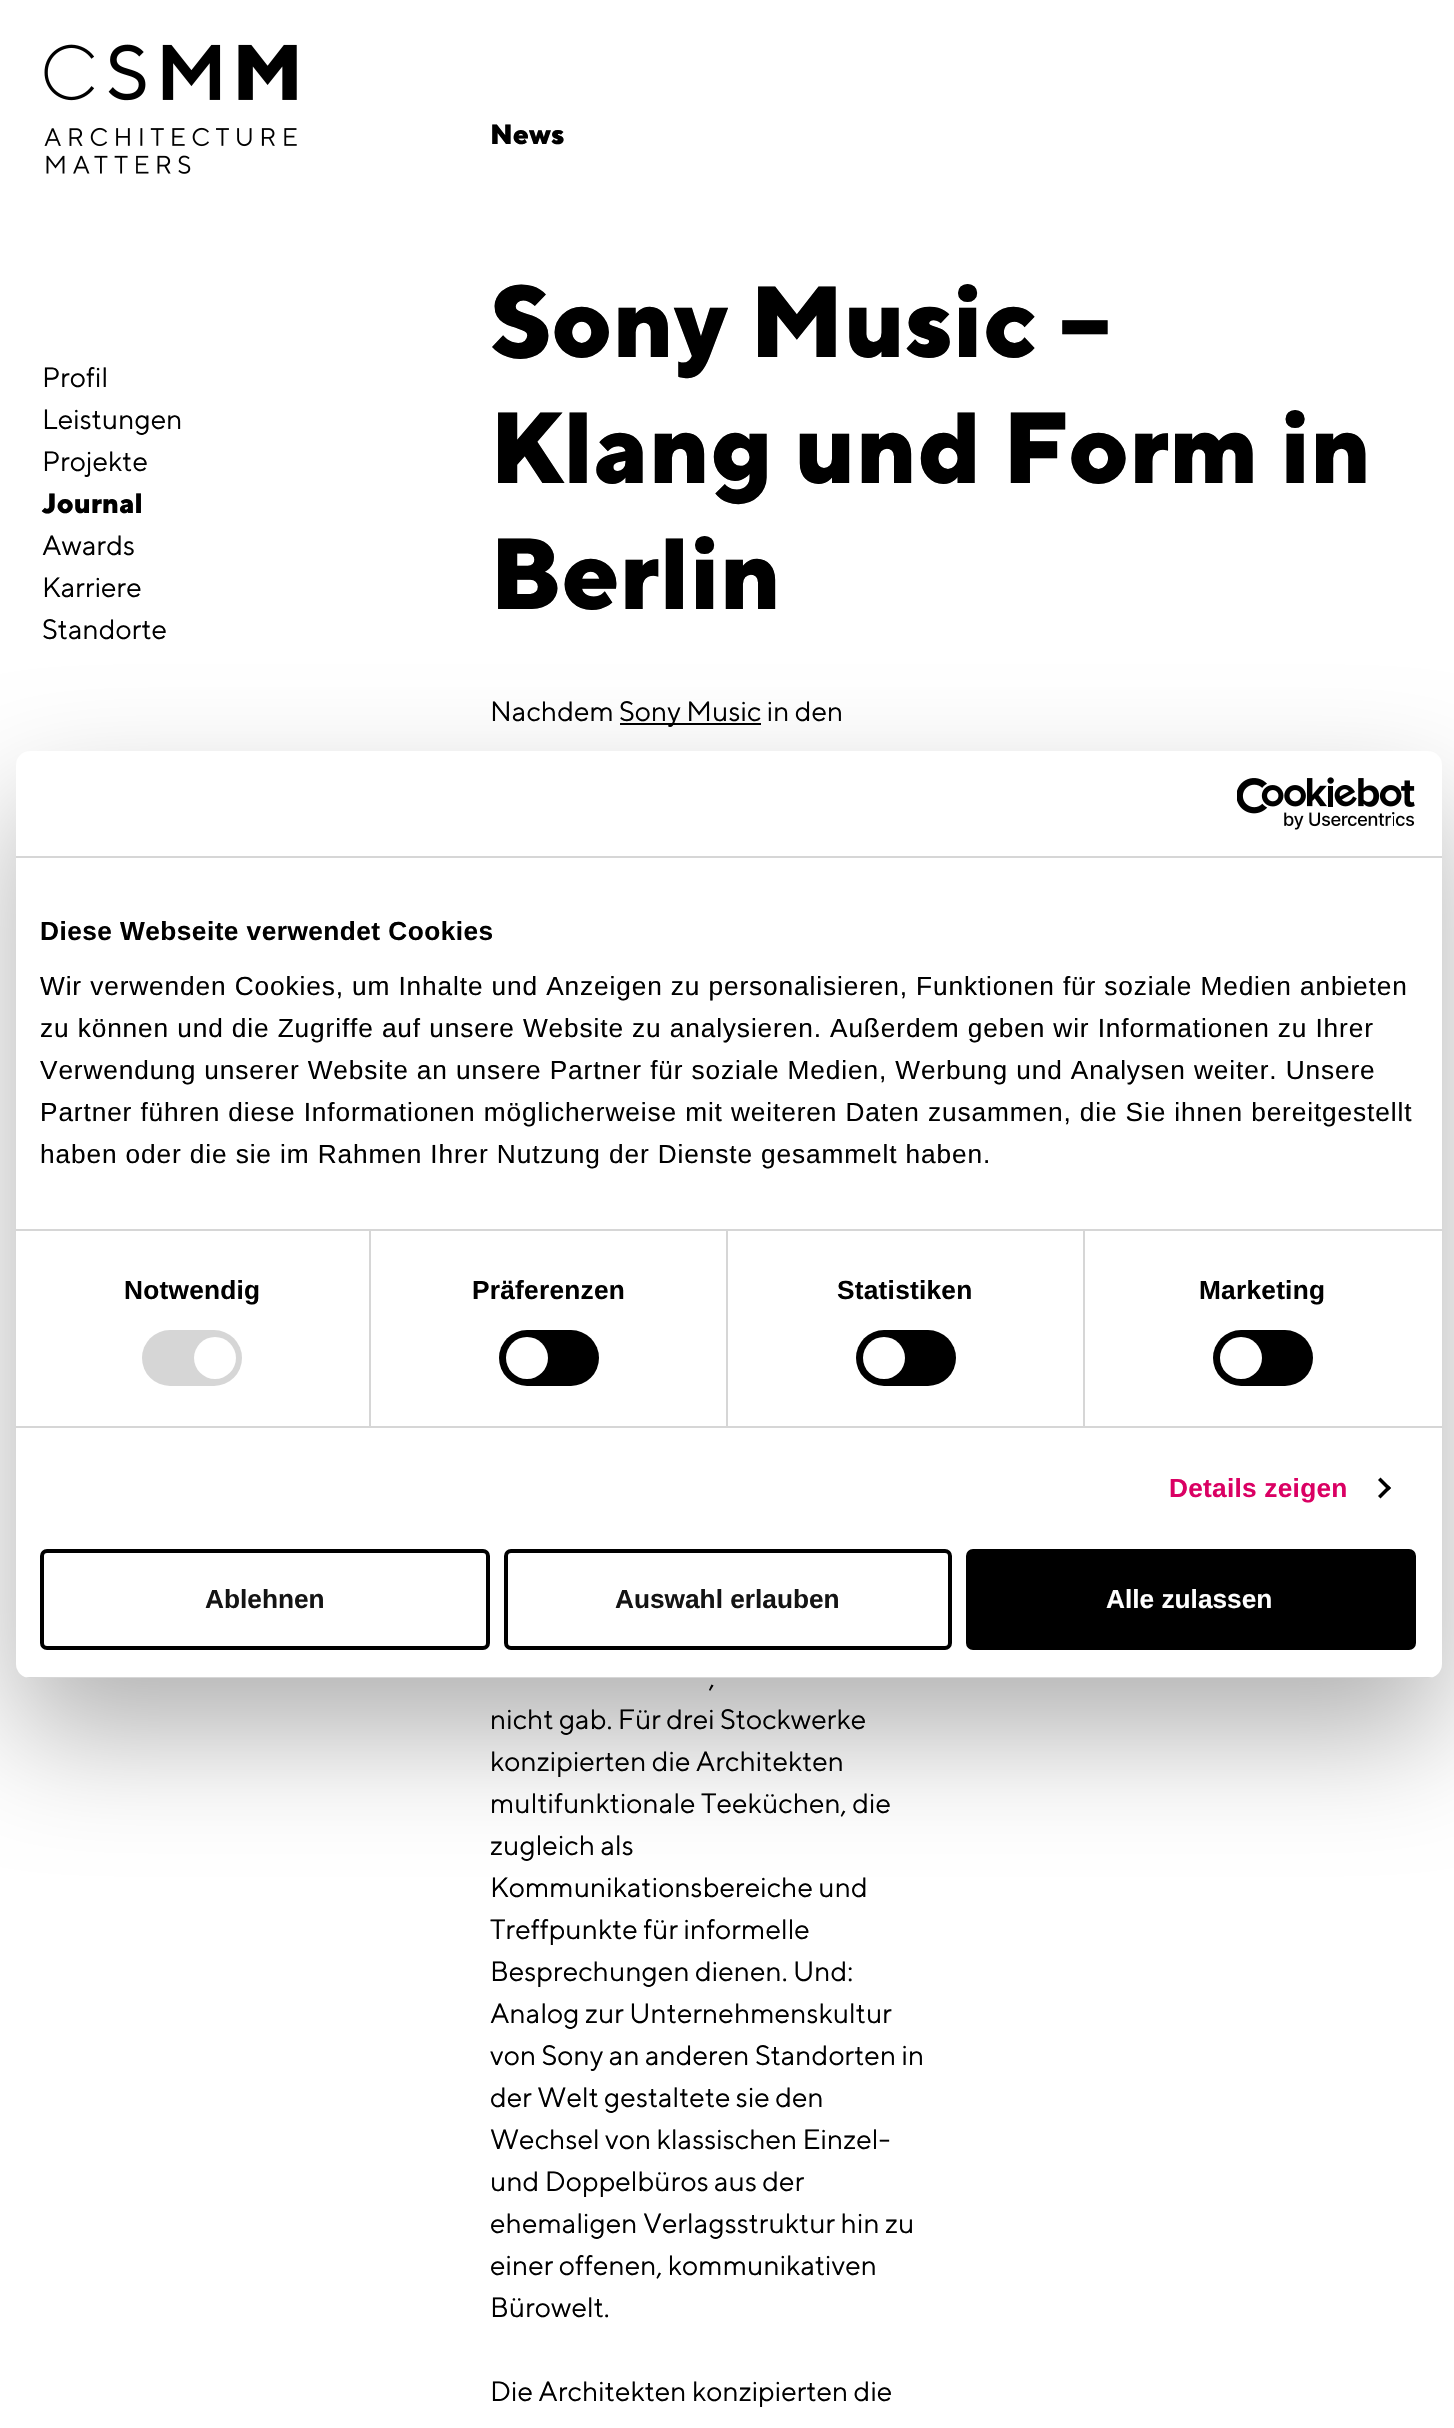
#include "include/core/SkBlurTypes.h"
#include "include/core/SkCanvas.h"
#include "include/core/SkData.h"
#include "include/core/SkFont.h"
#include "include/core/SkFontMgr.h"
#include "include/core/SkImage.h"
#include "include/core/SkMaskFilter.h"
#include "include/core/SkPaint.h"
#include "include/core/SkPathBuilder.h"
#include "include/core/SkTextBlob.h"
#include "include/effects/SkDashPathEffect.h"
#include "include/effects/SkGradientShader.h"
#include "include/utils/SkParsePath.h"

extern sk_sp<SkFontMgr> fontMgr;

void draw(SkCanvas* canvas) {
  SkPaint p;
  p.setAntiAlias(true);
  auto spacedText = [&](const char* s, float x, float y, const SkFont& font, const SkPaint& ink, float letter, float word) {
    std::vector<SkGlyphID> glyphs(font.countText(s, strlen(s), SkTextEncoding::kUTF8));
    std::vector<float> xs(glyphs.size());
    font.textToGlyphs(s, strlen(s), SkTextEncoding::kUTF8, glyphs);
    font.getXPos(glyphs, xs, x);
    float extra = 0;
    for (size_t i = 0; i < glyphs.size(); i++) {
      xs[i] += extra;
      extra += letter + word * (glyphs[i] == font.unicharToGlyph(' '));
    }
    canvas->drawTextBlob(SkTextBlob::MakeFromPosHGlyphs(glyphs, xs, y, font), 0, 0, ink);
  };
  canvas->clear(SK_ColorWHITE);
  canvas->drawImageRect(SkImages::DeferredFromEncodedData(SkData::MakeFromFileName("images/1.png")), SkRect::MakeLTRB(44, 44, 297, 174), SkSamplingOptions());
  p.setColor(SK_ColorBLACK);
  canvas->drawRect(SkRect::MakeLTRB(620, 723, 761, 725), p);
  p.setColor(SkColorSetARGB(77, 0, 0, 0));
  p.setMaskFilter(SkMaskFilter::MakeBlur(kNormal_SkBlurStyle, 59.5f));
  canvas->drawRoundRect(SkRect::MakeLTRB(16, 807, 1442, 1734), 14, 14, p);
  p.setMaskFilter(nullptr);
  p.setColor(SK_ColorWHITE);
  canvas->drawRoundRect(SkRect::MakeLTRB(16, 751, 1442, 1678), 14, 14, p);
  p.setColor(SkColorSetRGB(214, 214, 214));
  canvas->drawRect(SkRect::MakeLTRB(16, 856, 1442, 858), p);
  canvas->drawImageRect(SkImages::DeferredFromEncodedData(SkData::MakeFromFileName("images/2.png")), SkRect::MakeLTRB(1237, 777, 1415, 830), SkSamplingOptions());
  canvas->drawRect(SkRect::MakeLTRB(369, 1230, 371, 1426), p);
  canvas->drawRect(SkRect::MakeLTRB(726, 1230, 728, 1426), p);
  canvas->drawRect(SkRect::MakeLTRB(1083, 1230, 1085, 1426), p);
  canvas->drawRect(SkRect::MakeLTRB(16, 1229, 1442, 1231), p);
  canvas->drawRect(SkRect::MakeLTRB(16, 1426, 1442, 1428), p);
  canvas->drawRoundRect(SkRect::MakeLTRB(142, 1330, 242, 1386), 28, 28, p);
  p.setColor(SK_ColorWHITE);
  canvas->drawCircle(215, 1358, 21, p);
  p.setColor(SK_ColorBLACK);
  canvas->drawRoundRect(SkRect::MakeLTRB(499, 1330, 599, 1386), 28, 28, p);
  p.setColor(SK_ColorWHITE);
  canvas->drawCircle(527, 1358, 21, p);
  p.setColor(SK_ColorBLACK);
  canvas->drawRoundRect(SkRect::MakeLTRB(856, 1330, 956, 1386), 28, 28, p);
  p.setColor(SK_ColorWHITE);
  canvas->drawCircle(884, 1358, 21, p);
  p.setColor(SK_ColorBLACK);
  canvas->drawRoundRect(SkRect::MakeLTRB(1213, 1330, 1313, 1386), 28, 28, p);
  p.setColor(SK_ColorWHITE);
  canvas->drawCircle(1241, 1358, 21, p);
  p.setColor(SK_ColorBLACK);
  canvas->drawPath(SkPathBuilder().moveTo(1380.5f, 1477.5f).lineTo(1391, 1488).lineTo(1388.5f, 1490.5f).lineTo(1378, 1480).close().detach(), p);
  canvas->drawPath(SkPathBuilder().moveTo(1388.5f, 1485.5f).lineTo(1391, 1488).lineTo(1380.5f, 1498.5f).lineTo(1378, 1496).close().detach(), p);
  canvas->save();
  canvas->clipPath(SkPathBuilder().moveTo(30, 751).lineTo(1428, 751).cubicTo(1435.5f, 751, 1442, 757.5f, 1442, 765).lineTo(1442, 1664).cubicTo(1442, 1671.5f, 1435.5f, 1678, 1428, 1678).lineTo(30, 1678).cubicTo(22.5f, 1678, 16, 1671.5f, 16, 1664).lineTo(16, 765).cubicTo(16, 757.5f, 22.5f, 751, 30, 751).close().detach(), true);
  p.setColor(SkColorSetRGB(214, 214, 214));
  canvas->drawRect(SkRect::MakeLTRB(25, 1677, 1433, 1678), p);
  canvas->restore();
  p.setStyle(SkPaint::kStroke_Style);
  p.setStrokeWidth(4);
  p.setColor(SK_ColorBLACK);
  canvas->drawRoundRect(SkRect::MakeLTRB(42, 1551, 488, 1648), 5, 5, p);
  canvas->drawRoundRect(SkRect::MakeLTRB(506, 1551, 950, 1648), 5, 5, p);
  p.setStyle(SkPaint::kFill_Style);
  canvas->drawRoundRect(SkRect::MakeLTRB(968, 1551, 1414, 1648), 5, 5, p);
  p.setStyle(SkPaint::kStroke_Style);
  canvas->drawRoundRect(SkRect::MakeLTRB(968, 1551, 1414, 1648), 5, 5, p);
  SkFont font1(fontMgr->matchFamilyStyle("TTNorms", SkFontStyle::Normal()), 28);
  font1.setSubpixel(true);
  p.setStyle(SkPaint::kFill_Style);
  canvas->drawString("Profil", 42, 387, font1, p);
  canvas->drawString("Leistungen", 42, 429, font1, p);
  canvas->drawString("Projekte", 42, 471, font1, p);
  SkFont font2(fontMgr->matchFamilyStyle("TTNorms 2", SkFontStyle::Normal()), 28);
  font2.setSubpixel(true);
  canvas->drawString("Journal", 42, 513, font2, p);
  canvas->drawString("Awards", 42, 555, font1, p);
  canvas->drawString("Karriere", 42, 597, font1, p);
  canvas->drawString("Standorte", 42, 639, font1, p);
  canvas->drawString("News", 490, 144, font2, p);
  SkFont font3(fontMgr->matchFamilyStyle("TTNorms 2", SkFontStyle::Normal()), 100.75f);
  font3.setSubpixel(true);
  canvas->drawString("Sony Music –", 490, 357, font3, p);
  canvas->drawString("Klang und Form in", 490, 483, font3, p);
  canvas->drawString("Berlin", 490, 609, font3, p);
  canvas->drawString("Nachdem", 490, 721, font1, p);
  canvas->drawString("Sony Music in den", 619, 721, font1, p);
  canvas->drawString(",", 709, 1687, font1, p);
  canvas->drawString("nicht gab. Für drei Stockwerke", 490, 1729, font1, p);
  canvas->drawString("konzipierten die Architekten", 490, 1771, font1, p);
  canvas->drawString("multifunktionale Teeküchen, die", 490, 1813, font1, p);
  canvas->drawString("zugleich als", 490, 1855, font1, p);
  canvas->drawString("Kommunikationsbereiche und", 490, 1897, font1, p);
  canvas->drawString("Treffpunkte für informelle", 490, 1939, font1, p);
  canvas->drawString("Besprechungen dienen. Und:", 490, 1981, font1, p);
  canvas->drawString("Analog zur Unternehmenskultur", 490, 2023, font1, p);
  canvas->drawString("von Sony an anderen Standorten in", 490, 2065, font1, p);
  canvas->drawString("der Welt gestaltete sie den", 490, 2107, font1, p);
  canvas->drawString("Wechsel von klassischen Einzel-", 490, 2149, font1, p);
  canvas->drawString("und Doppelbüros aus der", 490, 2191, font1, p);
  canvas->drawString("ehemaligen Verlagsstruktur hin zu", 490, 2233, font1, p);
  canvas->drawString("einer offenen, kommunikativen", 490, 2275, font1, p);
  canvas->drawString("Bürowelt.", 490, 2317, font1, p);
  canvas->drawString("Die Architekten konzipierten die", 490, 2401, font1, p);
  SkFont font4(fontMgr->matchFamilyStyle("Liberation Sans", SkFontStyle::Bold()), 26.25f);
  font4.setSubpixel(true);
  spacedText("Diese Webseite verwendet Cookies", 40, 940, font4, p, 0.45f, 0);
  SkFont font5(fontMgr->matchFamilyStyle("Liberation Sans", SkFontStyle::Normal()), 26.25f);
  font5.setSubpixel(true);
  spacedText("Wir verwenden Cookies, um Inhalte und Anzeigen zu personalisieren, Funktionen für soziale Medien anbieten", 40, 995, font5, p, 0.88f, 0);
  spacedText("zu können und die Zugriffe auf unsere Website zu analysieren. Außerdem geben wir Informationen zu Ihrer", 40, 1037, font5, p, 0.88f, 0);
  spacedText("Verwendung unserer Website an unsere Partner für soziale Medien, Werbung und Analysen weiter. Unsere", 40, 1079, font5, p, 0.88f, 0);
  spacedText("Partner führen diese Informationen möglicherweise mit weiteren Daten zusammen, die Sie ihnen bereitgestellt", 40, 1121, font5, p, 0.88f, 0);
  spacedText("haben oder die sie im Rahmen Ihrer Nutzung der Dienste gesammelt haben.", 40, 1163, font5, p, 0.88f, 0);
  spacedText("Notwendig", 124, 1299, font4, p, 0.25f, 0);
  spacedText("Präferenzen", 472, 1299, font4, p, 0.25f, 0);
  spacedText("Statistiken", 837, 1299, font4, p, 0.25f, 0);
  spacedText("Marketing", 1199, 1299, font4, p, 0.25f, 0);
  p.setColor(SkColorSetRGB(218, 0, 99));
  spacedText("Details zeigen", 1169, 1497, font4, p, 0.25f, 0);
  p.setColor(SkColorSetRGB(20, 20, 20));
  canvas->drawString("Ablehnen", 205, 1608, font4, p);
  canvas->drawString("Auswahl erlauben", 615, 1608, font4, p);
  p.setColor(SK_ColorWHITE);
  canvas->drawString("Alle zulassen", 1106, 1608, font4, p);
}
